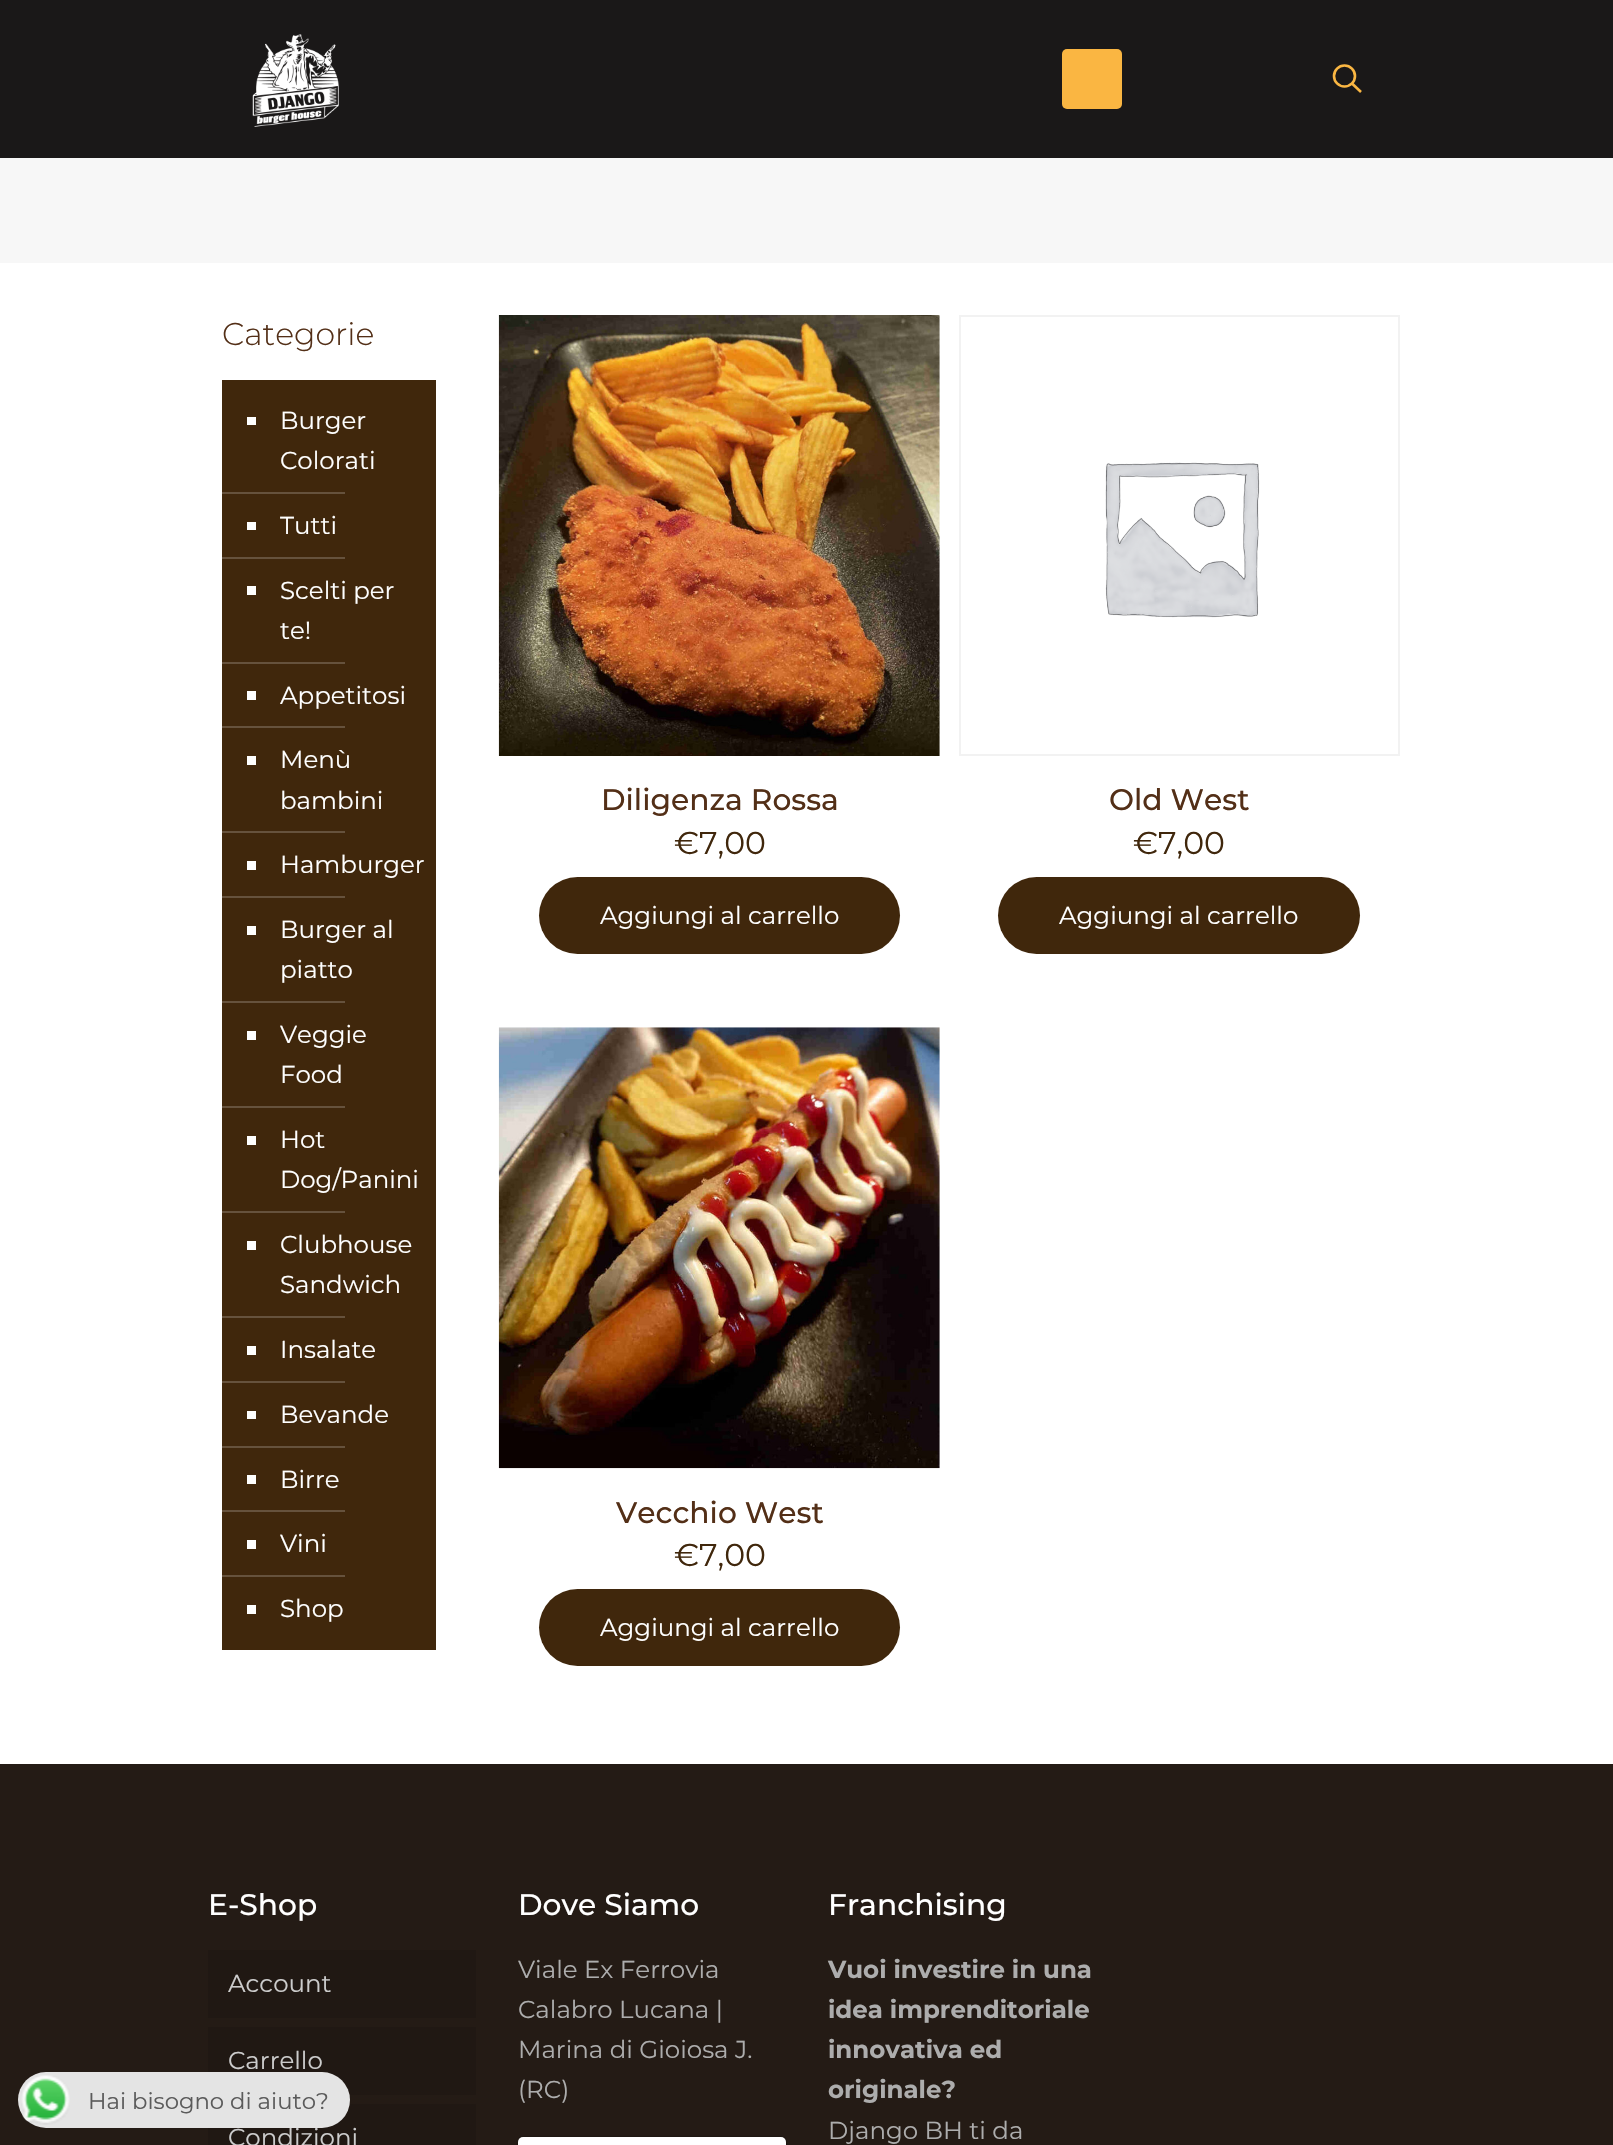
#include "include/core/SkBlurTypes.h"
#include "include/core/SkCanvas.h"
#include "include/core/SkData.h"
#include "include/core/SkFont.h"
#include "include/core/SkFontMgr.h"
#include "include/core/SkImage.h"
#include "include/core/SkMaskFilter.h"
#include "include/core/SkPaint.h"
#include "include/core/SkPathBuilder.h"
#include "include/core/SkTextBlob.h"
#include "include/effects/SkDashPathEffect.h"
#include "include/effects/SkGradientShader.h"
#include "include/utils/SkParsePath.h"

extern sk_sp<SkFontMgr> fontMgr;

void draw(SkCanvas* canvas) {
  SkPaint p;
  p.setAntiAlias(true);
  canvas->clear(SK_ColorWHITE);
  p.setColor(SkColorSetRGB(26, 24, 24));
  canvas->drawRect(SkRect::MakeLTRB(0, 0, 1613, 158), p);
  canvas->drawImageRect(SkImages::DeferredFromEncodedData(SkData::MakeFromFileName("images/2.png")), SkRect::MakeLTRB(252, 34, 339, 127), SkSamplingOptions());
  p.setColor(SkColorSetRGB(250, 182, 66));
  canvas->drawRoundRect(SkRect::MakeLTRB(1062, 49, 1122, 109), 5, 5, p);
  p.setStyle(SkPaint::kStroke_Style);
  p.setStrokeWidth(2.6f);
  canvas->drawCircle(1344.5f, 76, 10.5f, p);
  canvas->drawPath(SkPathBuilder().moveTo(1352, 83.5f).lineTo(1361, 92).detach(), p);
  p.setStyle(SkPaint::kFill_Style);
  p.setColor(SkColorSetRGB(247, 247, 247));
  canvas->drawRect(SkRect::MakeLTRB(0, 158, 1613, 263), p);
  p.setColor(SkColorSetRGB(64, 39, 12));
  canvas->drawRect(SkRect::MakeLTRB(222, 380, 436, 1650), p);
  p.setColor(SK_ColorWHITE);
  canvas->drawRect(SkRect::MakeLTRB(247, 417, 256, 425), p);
  p.setColor(SkColorSetRGB(102, 82, 61));
  canvas->drawRect(SkRect::MakeLTRB(222, 492, 345, 494), p);
  p.setColor(SK_ColorWHITE);
  canvas->drawRect(SkRect::MakeLTRB(247, 522, 256, 530), p);
  p.setColor(SkColorSetRGB(102, 82, 61));
  canvas->drawRect(SkRect::MakeLTRB(222, 557, 345, 559), p);
  p.setColor(SK_ColorWHITE);
  canvas->drawRect(SkRect::MakeLTRB(247, 586, 256, 595), p);
  p.setColor(SkColorSetRGB(102, 82, 61));
  canvas->drawRect(SkRect::MakeLTRB(222, 662, 345, 664), p);
  p.setColor(SK_ColorWHITE);
  canvas->drawRect(SkRect::MakeLTRB(247, 691, 256, 700), p);
  p.setColor(SkColorSetRGB(102, 82, 61));
  canvas->drawRect(SkRect::MakeLTRB(222, 726, 345, 728), p);
  p.setColor(SK_ColorWHITE);
  canvas->drawRect(SkRect::MakeLTRB(247, 756, 256, 765), p);
  p.setColor(SkColorSetRGB(102, 82, 61));
  canvas->drawRect(SkRect::MakeLTRB(222, 831, 345, 833), p);
  p.setColor(SK_ColorWHITE);
  canvas->drawRect(SkRect::MakeLTRB(247, 861, 256, 870), p);
  p.setColor(SkColorSetRGB(102, 82, 61));
  canvas->drawRect(SkRect::MakeLTRB(222, 896, 345, 898), p);
  p.setColor(SK_ColorWHITE);
  canvas->drawRect(SkRect::MakeLTRB(247, 926, 256, 935), p);
  p.setColor(SkColorSetRGB(102, 82, 61));
  canvas->drawRect(SkRect::MakeLTRB(222, 1001, 345, 1003), p);
  p.setColor(SK_ColorWHITE);
  canvas->drawRect(SkRect::MakeLTRB(247, 1031, 256, 1040), p);
  p.setColor(SkColorSetRGB(102, 82, 61));
  canvas->drawRect(SkRect::MakeLTRB(222, 1106, 345, 1108), p);
  p.setColor(SK_ColorWHITE);
  canvas->drawRect(SkRect::MakeLTRB(247, 1136, 256, 1145), p);
  p.setColor(SkColorSetRGB(102, 82, 61));
  canvas->drawRect(SkRect::MakeLTRB(222, 1211, 345, 1213), p);
  p.setColor(SK_ColorWHITE);
  canvas->drawRect(SkRect::MakeLTRB(247, 1241, 256, 1250), p);
  p.setColor(SkColorSetRGB(102, 82, 61));
  canvas->drawRect(SkRect::MakeLTRB(222, 1316, 345, 1318), p);
  p.setColor(SK_ColorWHITE);
  canvas->drawRect(SkRect::MakeLTRB(247, 1346, 256, 1355), p);
  p.setColor(SkColorSetRGB(102, 82, 61));
  canvas->drawRect(SkRect::MakeLTRB(222, 1381, 345, 1383), p);
  p.setColor(SK_ColorWHITE);
  canvas->drawRect(SkRect::MakeLTRB(247, 1411, 256, 1419), p);
  p.setColor(SkColorSetRGB(102, 82, 61));
  canvas->drawRect(SkRect::MakeLTRB(222, 1446, 345, 1448), p);
  p.setColor(SK_ColorWHITE);
  canvas->drawRect(SkRect::MakeLTRB(247, 1475, 256, 1484), p);
  p.setColor(SkColorSetRGB(102, 82, 61));
  canvas->drawRect(SkRect::MakeLTRB(222, 1510, 345, 1512), p);
  p.setColor(SK_ColorWHITE);
  canvas->drawRect(SkRect::MakeLTRB(247, 1540, 256, 1549), p);
  p.setColor(SkColorSetRGB(102, 82, 61));
  canvas->drawRect(SkRect::MakeLTRB(222, 1575, 345, 1577), p);
  p.setColor(SK_ColorWHITE);
  canvas->drawRect(SkRect::MakeLTRB(247, 1605, 256, 1614), p);
  canvas->drawImageRect(SkImages::DeferredFromEncodedData(SkData::MakeFromFileName("images/3.png")), SkRect::MakeLTRB(498, 315, 940, 756), SkSamplingOptions());
  p.setColor(SkColorSetRGB(64, 39, 12));
  canvas->drawRoundRect(SkRect::MakeLTRB(539, 877, 900, 954), 38.5f, 38.5f, p);
  p.setStyle(SkPaint::kStroke_Style);
  p.setStrokeWidth(2);
  p.setColor(SkColorSetRGB(242, 242, 242));
  canvas->drawRect(SkRect::MakeLTRB(960, 316, 1399, 755), p);
  canvas->drawImageRect(SkImages::DeferredFromEncodedData(SkData::MakeFromFileName("images/4.png")), SkRect::MakeLTRB(1105, 462, 1260, 618), SkSamplingOptions());
  p.setStyle(SkPaint::kFill_Style);
  p.setColor(SkColorSetRGB(64, 39, 12));
  canvas->drawRoundRect(SkRect::MakeLTRB(998, 877, 1360, 954), 38.5f, 38.5f, p);
  canvas->drawImageRect(SkImages::DeferredFromEncodedData(SkData::MakeFromFileName("images/5.png")), SkRect::MakeLTRB(498, 1027, 940, 1469), SkSamplingOptions());
  canvas->drawRoundRect(SkRect::MakeLTRB(539, 1589, 900, 1666), 38.5f, 38.5f, p);
  p.setColor(SkColorSetRGB(36, 27, 21));
  canvas->drawRect(SkRect::MakeLTRB(0, 1764, 1613, 2145), p);
  p.setColor(SkColorSetRGB(32, 24, 19));
  canvas->drawRect(SkRect::MakeLTRB(208, 1950, 476, 2018), p);
  canvas->drawRect(SkRect::MakeLTRB(208, 2027, 476, 2095), p);
  canvas->drawRect(SkRect::MakeLTRB(208, 2104, 476, 2145), p);
  p.setColor(SkColorSetARGB(128, 0, 0, 0));
  p.setMaskFilter(SkMaskFilter::MakeBlur(kNormal_SkBlurStyle, 1));
  canvas->drawRoundRect(SkRect::MakeLTRB(518, 2137, 786, 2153), 5, 5, p);
  p.setMaskFilter(nullptr);
  p.setColor(SK_ColorWHITE);
  canvas->drawRoundRect(SkRect::MakeLTRB(518, 2137, 786, 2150), 5, 5, p);
  SkFont font1(fontMgr->matchFamilyStyle("Montserrat", SkFontStyle(300, SkFontStyle::kNormal_Width, SkFontStyle::kUpright_Slant)), 31.5f);
  font1.setSubpixel(true);
  p.setColor(SkColorSetRGB(83, 47, 23));
  canvas->drawString("Categorie", 222, 345, font1, p);
  SkFont font2(fontMgr->matchFamilyStyle("Montserrat", SkFontStyle::Normal()), 24.5f);
  font2.setSubpixel(true);
  p.setColor(SK_ColorWHITE);
  canvas->drawString("Burger", 280, 429, font2, p);
  canvas->drawString("Colorati", 280, 469, font2, p);
  canvas->drawString("Tutti", 280, 534, font2, p);
  canvas->drawString("Scelti per", 280, 599, font2, p);
  canvas->drawString("te!", 280, 639, font2, p);
  canvas->drawString("Appetitosi", 280, 704, font2, p);
  canvas->drawString("Menù", 280, 768, font2, p);
  canvas->drawString("bambini", 280, 809, font2, p);
  canvas->drawString("Hamburger", 280, 873, font2, p);
  canvas->drawString("Burger al", 280, 938, font2, p);
  canvas->drawString("piatto", 280, 978, font2, p);
  canvas->drawString("Veggie", 280, 1043, font2, p);
  canvas->drawString("Food", 280, 1083, font2, p);
  canvas->drawString("Hot", 280, 1148, font2, p);
  canvas->drawString("Dog/Panini", 280, 1188, font2, p);
  canvas->drawString("Clubhouse", 280, 1253, font2, p);
  canvas->drawString("Sandwich", 280, 1293, font2, p);
  canvas->drawString("Insalate", 280, 1358, font2, p);
  canvas->drawString("Bevande", 280, 1423, font2, p);
  canvas->drawString("Birre", 280, 1488, font2, p);
  canvas->drawString("Vini", 280, 1552, font2, p);
  canvas->drawString("Shop", 280, 1617, font2, p);
  SkFont font3(fontMgr->matchFamilyStyle("Montserrat", SkFontStyle(500, SkFontStyle::kNormal_Width, SkFontStyle::kUpright_Slant)), 29.75f);
  font3.setSubpixel(true);
  p.setColor(SkColorSetRGB(83, 47, 23));
  canvas->drawString("Diligenza Rossa", 601, 810, font3, p);
  SkFont font4(fontMgr->matchFamilyStyle("Montserrat", SkFontStyle::Normal()), 31.5f);
  font4.setSubpixel(true);
  p.setColor(SkColorSetRGB(64, 39, 12));
  canvas->drawString("€7,00", 674, 854, font4, p);
  p.setColor(SK_ColorWHITE);
  canvas->drawString("Aggiungi al carrello", 600, 924, font2, p);
  p.setColor(SkColorSetRGB(83, 47, 23));
  canvas->drawString("Old West", 1109, 810, font3, p);
  p.setColor(SkColorSetRGB(64, 39, 12));
  canvas->drawString("€7,00", 1133, 854, font4, p);
  p.setColor(SK_ColorWHITE);
  canvas->drawString("Aggiungi al carrello", 1059, 924, font2, p);
  p.setColor(SkColorSetRGB(83, 47, 23));
  canvas->drawString("Vecchio West", 616, 1523, font3, p);
  p.setColor(SkColorSetRGB(64, 39, 12));
  canvas->drawString("€7,00", 674, 1566, font4, p);
  p.setColor(SK_ColorWHITE);
  canvas->drawString("Aggiungi al carrello", 600, 1636, font2, p);
  canvas->drawString("E-Shop", 208, 1915, font3, p);
  p.setColor(SkColorSetRGB(204, 204, 204));
  canvas->drawString("Account", 228, 1992, font2, p);
  canvas->drawString("Carrello", 228, 2069, font2, p);
  canvas->drawString("Condizioni", 228, 2146, font2, p);
  p.setColor(SkColorSetRGB(228, 228, 228));
  canvas->drawRoundRect(SkRect::MakeLTRB(18, 2072, 350, 2128), 28, 28, p);
  SkFont font5(fontMgr->matchFamilyStyle("Montserrat", SkFontStyle::Normal()), 22.75f);
  font5.setSubpixel(true);
  p.setColor(SkColorSetRGB(91, 91, 91));
  canvas->drawString("Hai bisogno di aiuto?", 88, 2109, font5, p);
  canvas->drawImageRect(SkImages::DeferredFromEncodedData(SkData::MakeFromFileName("images/1.png")), SkRect::MakeLTRB(21, 2075, 70, 2125), SkSamplingOptions());
  p.setColor(SK_ColorWHITE);
  canvas->drawString("Dove Siamo", 518, 1915, font3, p);
  p.setColor(SkColorSetRGB(173, 173, 173));
  canvas->drawString("Viale Ex Ferrovia", 518, 1978, font2, p);
  canvas->drawString("Calabro Lucana |", 518, 2018, font2, p);
  canvas->drawString("Marina di Gioiosa J.", 518, 2058, font2, p);
  canvas->drawString("(RC)", 518, 2098, font2, p);
  p.setColor(SK_ColorWHITE);
  canvas->drawString("Franchising", 828, 1915, font3, p);
  SkFont font6(fontMgr->matchFamilyStyle("Montserrat", SkFontStyle::Bold()), 24.5f);
  font6.setSubpixel(true);
  p.setColor(SkColorSetRGB(173, 173, 173));
  canvas->drawString("Vuoi investire in una", 828, 1978, font6, p);
  canvas->drawString("idea imprenditoriale", 828, 2018, font6, p);
  canvas->drawString("innovativa ed", 828, 2058, font6, p);
  canvas->drawString("originale?", 828, 2098, font6, p);
  canvas->drawString("Django BH ti da", 828, 2139, font2, p);
}
